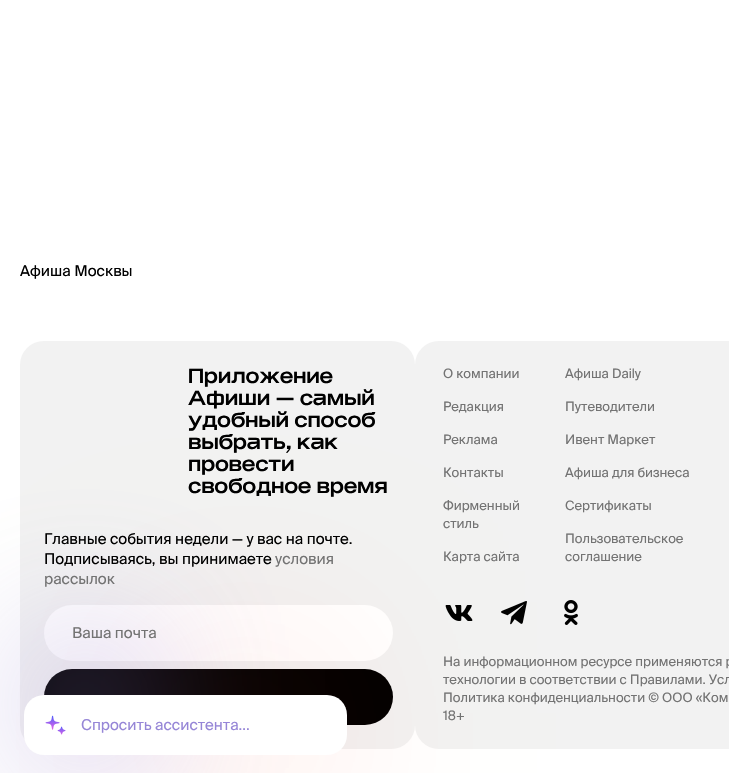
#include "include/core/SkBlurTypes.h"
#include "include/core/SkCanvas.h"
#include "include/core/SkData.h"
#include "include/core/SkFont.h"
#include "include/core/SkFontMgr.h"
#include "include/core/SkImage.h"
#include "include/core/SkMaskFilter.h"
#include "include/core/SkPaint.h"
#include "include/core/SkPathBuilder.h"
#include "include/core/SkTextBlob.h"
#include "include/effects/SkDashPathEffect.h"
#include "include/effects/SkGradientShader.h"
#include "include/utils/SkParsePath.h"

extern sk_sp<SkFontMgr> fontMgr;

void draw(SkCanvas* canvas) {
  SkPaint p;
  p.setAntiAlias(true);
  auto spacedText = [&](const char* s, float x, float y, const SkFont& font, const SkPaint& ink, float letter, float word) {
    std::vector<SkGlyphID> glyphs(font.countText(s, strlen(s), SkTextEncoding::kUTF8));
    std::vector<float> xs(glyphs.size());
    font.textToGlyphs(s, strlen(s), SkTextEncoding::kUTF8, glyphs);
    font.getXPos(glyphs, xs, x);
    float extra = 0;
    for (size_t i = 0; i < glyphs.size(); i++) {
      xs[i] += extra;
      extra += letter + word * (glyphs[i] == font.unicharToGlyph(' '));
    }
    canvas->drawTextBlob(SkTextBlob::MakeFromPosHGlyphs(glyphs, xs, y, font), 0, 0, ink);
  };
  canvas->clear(SK_ColorWHITE);
  p.setColor(SkColorSetRGB(242, 242, 242));
  canvas->drawRoundRect(SkRect::MakeLTRB(20, 341, 415, 749), 24, 24, p);
  canvas->drawRoundRect(SkRect::MakeLTRB(415, 341, 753, 749), 24, 24, p);
  canvas->drawImageRect(SkImages::DeferredFromEncodedData(SkData::MakeFromFileName("images/1.png")), SkRect::MakeLTRB(445, 605, 473, 621), SkSamplingOptions());
  canvas->drawImageRect(SkImages::DeferredFromEncodedData(SkData::MakeFromFileName("images/2.png")), SkRect::MakeLTRB(501, 601, 527, 625), SkSamplingOptions());
  canvas->drawImageRect(SkImages::DeferredFromEncodedData(SkData::MakeFromFileName("images/3.png")), SkRect::MakeLTRB(564, 600, 578, 625), SkSamplingOptions());
  p.setColor(SK_ColorWHITE);
  canvas->drawRoundRect(SkRect::MakeLTRB(44, 605, 393, 661), 28, 28, p);
  p.setColor(SK_ColorBLACK);
  canvas->drawRoundRect(SkRect::MakeLTRB(44, 669, 393, 725), 28, 28, p);
  p.setColor(SkColorSetARGB(38, 255, 33, 0));
  p.setMaskFilter(SkMaskFilter::MakeBlur(kNormal_SkBlurStyle, 100));
  canvas->drawRect(SkRect::MakeLTRB(173, 664, 316, 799), p);
  p.setMaskFilter(nullptr);
  p.setColor(SkColorSetARGB(77, 150, 134, 215));
  p.setMaskFilter(SkMaskFilter::MakeBlur(kNormal_SkBlurStyle, 70));
  canvas->drawRect(SkRect::MakeLTRB(13, 623, 157, 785), p);
  p.setMaskFilter(nullptr);
  p.setColor(SK_ColorWHITE);
  canvas->drawRoundRect(SkRect::MakeLTRB(24, 695, 347, 755), 20, 20, p);
  canvas->drawImageRect(SkImages::DeferredFromEncodedData(SkData::MakeFromFileName("images/4.png")), SkRect::MakeLTRB(45, 715, 66, 735), SkSamplingOptions());
  SkFont font1(fontMgr->matchFamilyStyle("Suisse", SkFontStyle::Normal()), 15);
  font1.setSubpixel(true);
  p.setColor(SK_ColorBLACK);
  canvas->drawString("Афиша Москвы", 20, 276, font1, p);
  SkFont font2(fontMgr->matchFamilyStyle("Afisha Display", SkFontStyle(500, SkFontStyle::kNormal_Width, SkFontStyle::kUpright_Slant)), 20);
  font2.setSubpixel(true);
  spacedText("Приложение", 188, 383, font2, p, -0.25f, 0);
  spacedText("Афиши — самый", 188, 405, font2, p, -0.25f, 0);
  spacedText("удобный способ", 188, 427, font2, p, -0.25f, 0);
  spacedText("выбрать, как", 188, 449, font2, p, -0.25f, 0);
  spacedText("провести", 188, 471, font2, p, -0.25f, 0);
  spacedText("свободное время", 188, 493, font2, p, -0.25f, 0);
  SkFont font3(fontMgr->matchFamilyStyle("Suisse", SkFontStyle::Normal()), 13);
  font3.setSubpixel(true);
  p.setColor(SkColorSetRGB(115, 115, 115));
  canvas->drawString("О компании", 443, 378, font3, p);
  canvas->drawString("Редакция", 443, 411, font3, p);
  canvas->drawString("Реклама", 443, 444, font3, p);
  canvas->drawString("Контакты", 443, 477, font3, p);
  canvas->drawString("Фирменный", 443, 510, font3, p);
  canvas->drawString("стиль", 443, 528, font3, p);
  canvas->drawString("Карта сайта", 443, 561, font3, p);
  canvas->drawString("Афиша Daily", 565, 378, font3, p);
  canvas->drawString("Путеводители", 565, 411, font3, p);
  canvas->drawString("Ивент Маркет", 565, 444, font3, p);
  canvas->drawString("Афиша для бизнеса", 565, 477, font3, p);
  canvas->drawString("Сертификаты", 565, 510, font3, p);
  canvas->drawString("Пользовательское", 565, 543, font3, p);
  canvas->drawString("соглашение", 565, 561, font3, p);
  canvas->drawString("На информационном ресурсе применяются р", 443, 666, font3, p);
  canvas->drawString("технологии в соответствии с Правилами. Усл", 443, 684, font3, p);
  canvas->drawString("Политика конфиденциальности © ООО «Ком", 443, 702, font3, p);
  canvas->drawString("18+", 443, 720, font3, p);
  p.setColor(SK_ColorBLACK);
  canvas->drawString("Главные события недели — у вас на почте.", 44, 544, font1, p);
  canvas->drawString("Подписываясь, вы принимаете", 44, 564, font1, p);
  p.setColor(SkColorSetRGB(115, 115, 115));
  canvas->drawString("условия", 275, 564, font1, p);
  canvas->drawString("рассылок", 44, 584, font1, p);
  canvas->drawString("Ваша почта", 72, 638, font1, p);
  p.setColor(SkColorSetRGB(150, 134, 215));
  canvas->drawString("Спросить ассистента...", 81, 730, font1, p);
}
